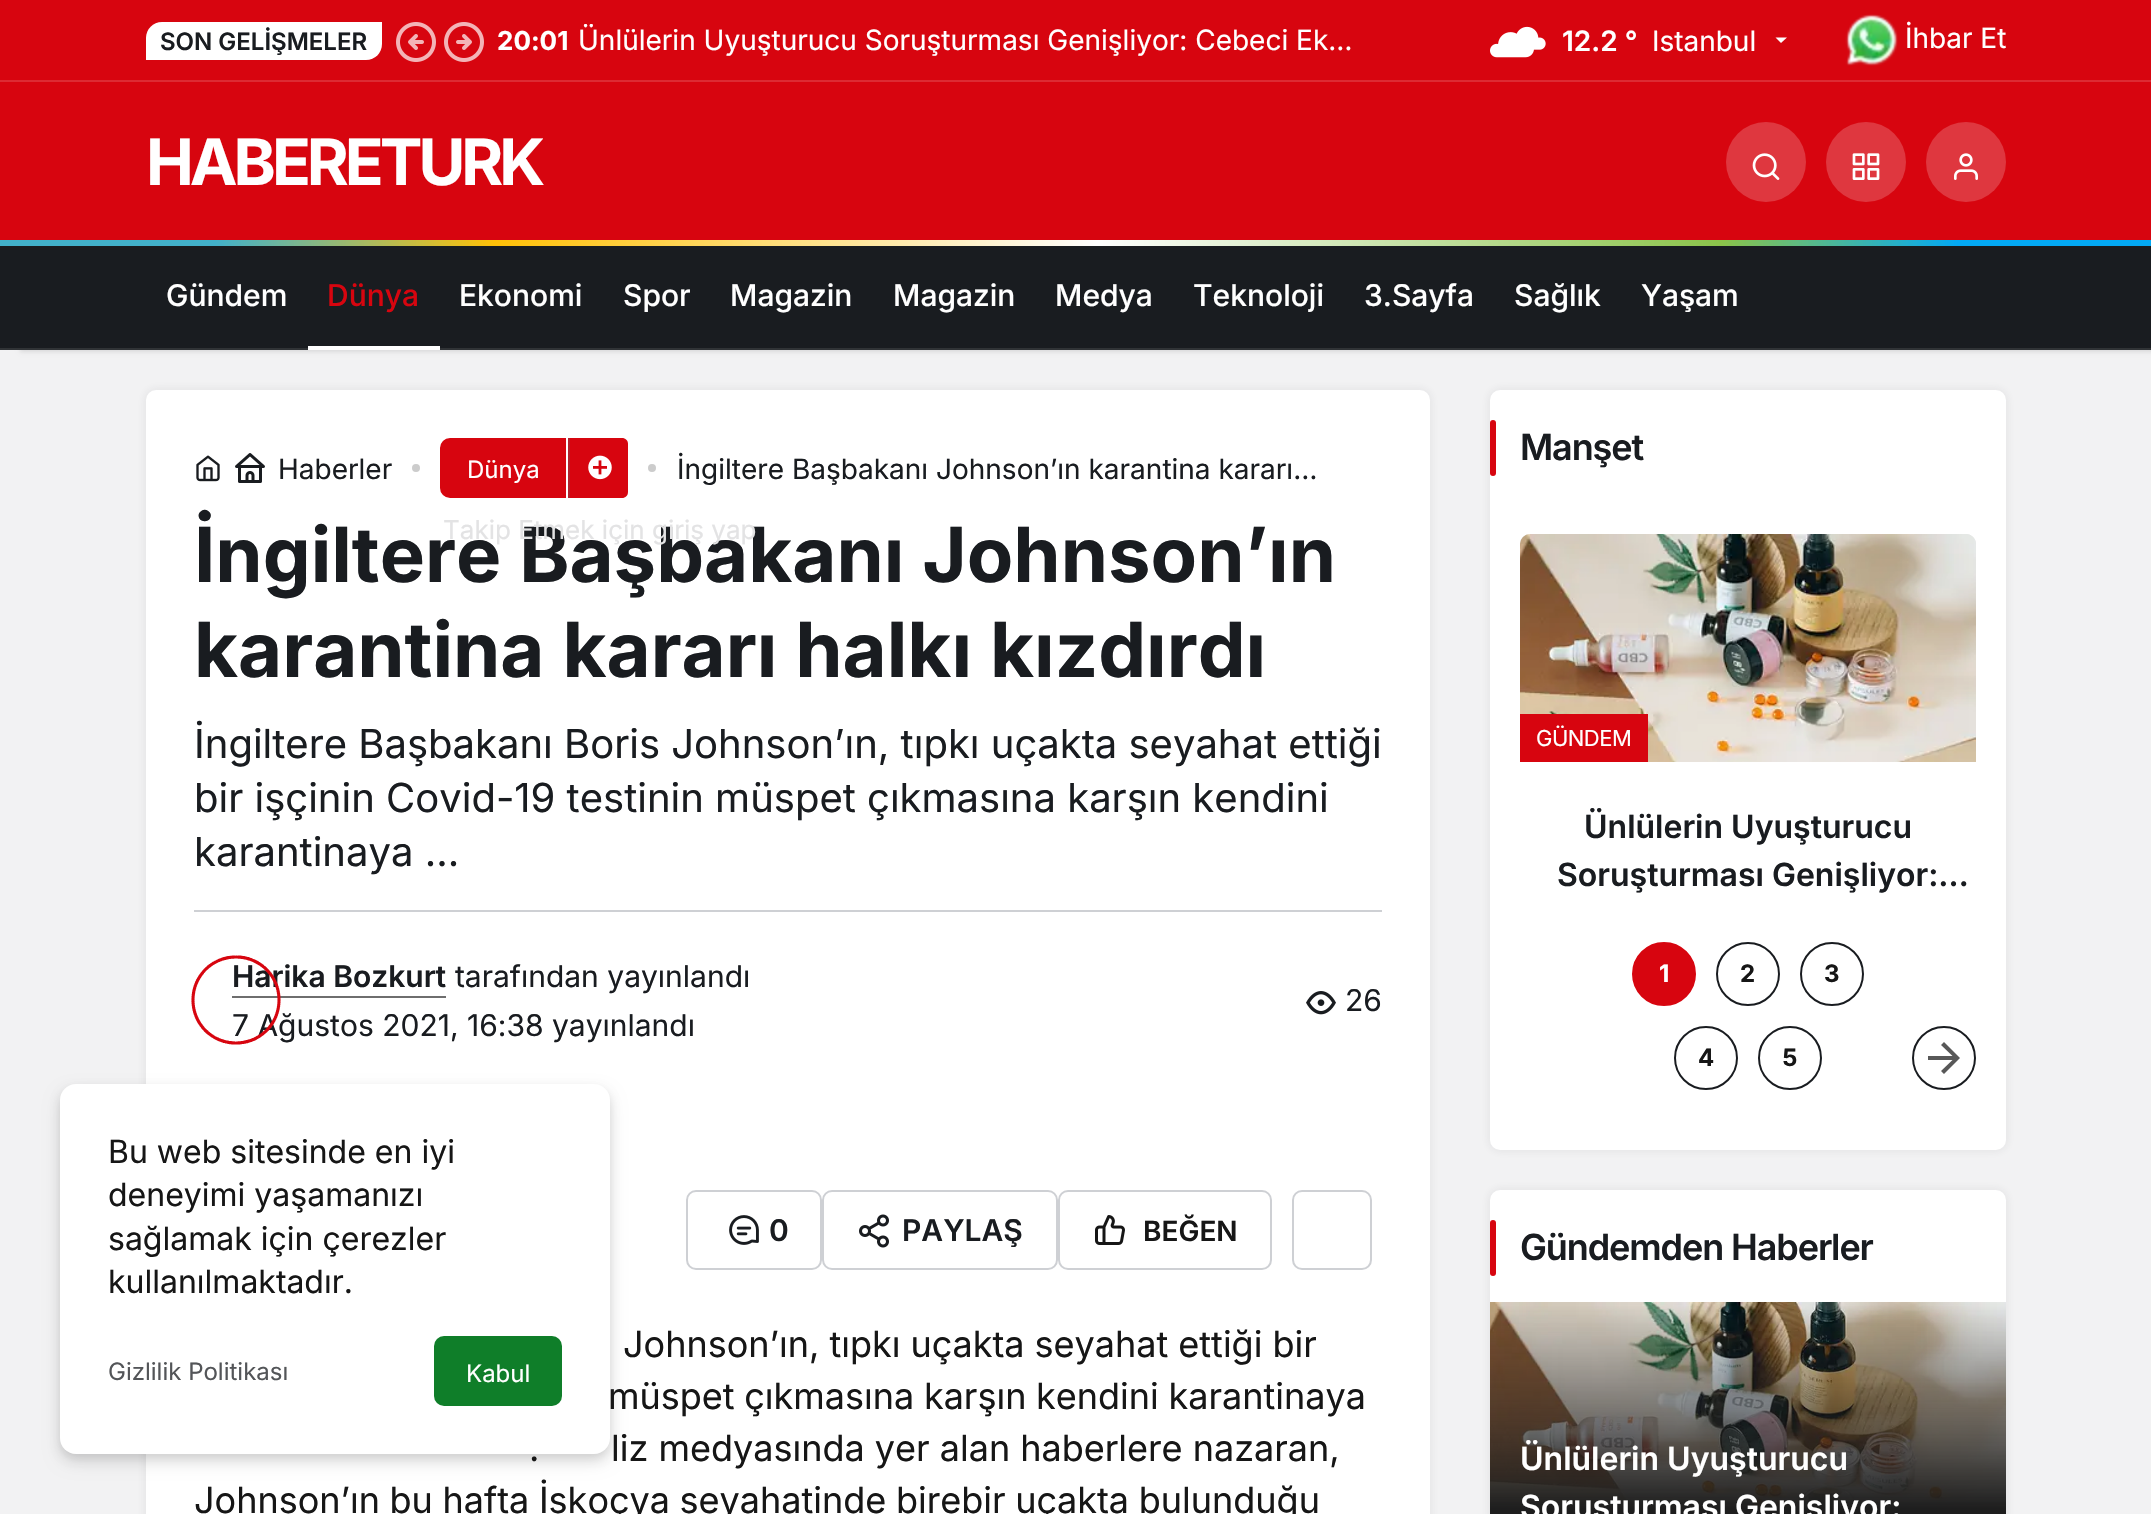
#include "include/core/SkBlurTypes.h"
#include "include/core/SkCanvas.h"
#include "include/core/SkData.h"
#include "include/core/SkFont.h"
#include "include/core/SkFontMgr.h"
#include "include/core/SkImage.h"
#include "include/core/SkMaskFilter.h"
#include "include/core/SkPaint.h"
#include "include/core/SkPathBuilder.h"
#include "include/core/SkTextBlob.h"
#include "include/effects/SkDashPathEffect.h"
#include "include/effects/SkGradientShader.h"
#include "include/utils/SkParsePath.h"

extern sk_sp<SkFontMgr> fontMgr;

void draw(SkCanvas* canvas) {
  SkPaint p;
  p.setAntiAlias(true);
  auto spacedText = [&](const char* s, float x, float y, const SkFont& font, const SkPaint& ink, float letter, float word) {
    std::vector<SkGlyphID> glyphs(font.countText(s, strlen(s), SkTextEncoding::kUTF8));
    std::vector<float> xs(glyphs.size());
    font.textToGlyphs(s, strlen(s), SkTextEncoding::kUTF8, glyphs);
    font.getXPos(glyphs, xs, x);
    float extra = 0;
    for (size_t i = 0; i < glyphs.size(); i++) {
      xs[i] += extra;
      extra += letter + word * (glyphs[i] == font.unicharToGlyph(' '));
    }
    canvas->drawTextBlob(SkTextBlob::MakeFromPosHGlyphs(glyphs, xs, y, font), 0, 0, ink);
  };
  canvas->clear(SkColorSetRGB(242, 242, 243));
  p.setColor(SkColorSetARGB(26, 0, 0, 0));
  p.setMaskFilter(SkMaskFilter::MakeBlur(kNormal_SkBlurStyle, 2));
  canvas->drawRect(SkRect::MakeLTRB(20, 242, 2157, 352), p);
  p.setMaskFilter(nullptr);
  p.setColor(SkColorSetRGB(215, 5, 15));
  canvas->drawRect(SkRect::MakeLTRB(0, 0, 2151, 240), p);
  p.setColor(SK_ColorWHITE);
  canvas->drawPath(SkPathBuilder().moveTo(162, 22).lineTo(382, 22).lineTo(382, 44).cubicTo(382, 53, 375, 60, 366, 60).lineTo(146, 60).lineTo(146, 38).cubicTo(146, 29, 153, 22, 162, 22).close().detach(), p);
  canvas->drawImageRect(SkImages::DeferredFromEncodedData(SkData::MakeFromFileName("images/1.png")), SkRect::MakeLTRB(396, 22, 436, 62), SkSamplingOptions());
  canvas->drawImageRect(SkImages::DeferredFromEncodedData(SkData::MakeFromFileName("images/2.png")), SkRect::MakeLTRB(444, 22, 484, 62), SkSamplingOptions());
  canvas->drawImageRect(SkImages::DeferredFromEncodedData(SkData::MakeFromFileName("images/3.png")), SkRect::MakeLTRB(1490, 26, 1546, 58), SkSamplingOptions());
  canvas->drawPath(SkPathBuilder().moveTo(1787, 37.5f).lineTo(1781, 43).lineTo(1775.5f, 37.5f).close().detach(), p);
  canvas->drawImageRect(SkImages::DeferredFromEncodedData(SkData::MakeFromFileName("images/4.png")), SkRect::MakeLTRB(1845, 14, 1898, 66), SkSamplingOptions());
  p.setColor(SkColorSetRGB(221, 43, 51));
  canvas->drawRect(SkRect::MakeLTRB(0, 80, 2151, 82), p);
  p.setColor(SkColorSetRGB(223, 55, 63));
  canvas->drawCircle(1766, 162, 40, p);
  canvas->drawImageRect(SkImages::DeferredFromEncodedData(SkData::MakeFromFileName("images/5.png")), SkRect::MakeLTRB(1752, 153, 1780, 180), SkSamplingOptions());
  canvas->drawCircle(1866, 162, 40, p);
  canvas->drawImageRect(SkImages::DeferredFromEncodedData(SkData::MakeFromFileName("images/6.png")), SkRect::MakeLTRB(1852, 153, 1880, 180), SkSamplingOptions());
  canvas->drawCircle(1966, 162, 40, p);
  canvas->drawImageRect(SkImages::DeferredFromEncodedData(SkData::MakeFromFileName("images/7.png")), SkRect::MakeLTRB(1954, 153, 1978, 180), SkSamplingOptions());
  p.setColor(SkColorSetRGB(25, 28, 32));
  canvas->drawRect(SkRect::MakeLTRB(0, 246, 2151, 348), p);
  {
    const SkColor colors[] = {SkColorSetRGB(66, 177, 202), SkColorSetRGB(255, 193, 7), SK_ColorWHITE, SkColorSetRGB(139, 195, 74), SkColorSetRGB(3, 169, 244)};
    const float stops[] = {0.1f, 0.23f, 0.51f, 0.8f, 0.91f};
    const SkPoint ends[] = {{0, 243}, {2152, 243}};
    p.setShader(SkGradientShader::MakeLinear(ends, colors, stops, 5, SkTileMode::kClamp));
    p.setAlpha(255);
  }
  canvas->drawRect(SkRect::MakeLTRB(0, 240, 2151, 246), p);
  p.setShader(nullptr);
  p.setColor(SkColorSetRGB(48, 51, 54));
  canvas->drawRect(SkRect::MakeLTRB(0, 348, 2151, 350), p);
  p.setColor(SK_ColorWHITE);
  canvas->drawRect(SkRect::MakeLTRB(308, 346, 440, 350), p);
  p.setColor(SkColorSetARGB(26, 50, 53, 61));
  p.setMaskFilter(SkMaskFilter::MakeBlur(kNormal_SkBlurStyle, 5));
  canvas->drawRoundRect(SkRect::MakeLTRB(146, 390, 1430, 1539), 10, 10, p);
  p.setMaskFilter(nullptr);
  p.setColor(SK_ColorWHITE);
  canvas->drawRoundRect(SkRect::MakeLTRB(146, 390, 1430, 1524), 10, 10, p);
  canvas->drawImageRect(SkImages::DeferredFromEncodedData(SkData::MakeFromFileName("images/8.png")), SkRect::MakeLTRB(196, 455, 220, 482), SkSamplingOptions());
  canvas->drawImageRect(SkImages::DeferredFromEncodedData(SkData::MakeFromFileName("images/9.png")), SkRect::MakeLTRB(235, 453, 265, 483), SkSamplingOptions());
  p.setColor(SkColorSetRGB(204, 204, 204));
  canvas->drawCircle(416, 468, 4, p);
  p.setColor(SkColorSetRGB(215, 5, 15));
  canvas->drawPath(SkPathBuilder().moveTo(450, 439).lineTo(565, 439).lineTo(565, 497).lineTo(450, 497).cubicTo(445, 497, 441, 493, 441, 488).lineTo(441, 448).cubicTo(441, 443, 445, 439, 450, 439).close().detach(), p);
  p.setStyle(SkPaint::kStroke_Style);
  p.setStrokeWidth(2);
  canvas->drawPath(SkPathBuilder().moveTo(450, 439).lineTo(565, 439).lineTo(565, 497).lineTo(450, 497).cubicTo(445, 497, 441, 493, 441, 488).lineTo(441, 448).cubicTo(441, 443, 445, 439, 450, 439).close().detach(), p);
  p.setStyle(SkPaint::kFill_Style);
  p.setColor(SkColorSetRGB(204, 204, 204));
  canvas->drawCircle(652, 468, 4, p);
  p.setColor(SkColorSetRGB(215, 5, 15));
  canvas->drawPath(SkPathBuilder().moveTo(568, 438).lineTo(622, 438).cubicTo(625.5f, 438, 628, 440.5f, 628, 444).lineTo(628, 492).cubicTo(628, 495.5f, 625.5f, 498, 622, 498).lineTo(568, 498).close().detach(), p);
  p.setColor(SkColorSetRGB(178, 33, 44));
  canvas->drawRect(SkRect::MakeLTRB(568, 438, 570, 498), p);
  canvas->drawImageRect(SkImages::DeferredFromEncodedData(SkData::MakeFromFileName("images/10.png")), SkRect::MakeLTRB(588, 455, 612, 480), SkSamplingOptions());
  p.setColor(SkColorSetRGB(206, 208, 212));
  canvas->drawRect(SkRect::MakeLTRB(194, 910, 1382, 912), p);
  p.setColor(SkColorSetRGB(110, 110, 110));
  canvas->drawRect(SkRect::MakeLTRB(232, 996, 446, 998), p);
  canvas->drawImageRect(SkImages::DeferredFromEncodedData(SkData::MakeFromFileName("images/11.png")), SkRect::MakeLTRB(1306, 991, 1336, 1015), SkSamplingOptions());
  p.setStyle(SkPaint::kStroke_Style);
  p.setColor(SkColorSetRGB(206, 208, 212));
  canvas->drawRoundRect(SkRect::MakeLTRB(687, 1191, 821, 1269), 9, 9, p);
  canvas->drawImageRect(SkImages::DeferredFromEncodedData(SkData::MakeFromFileName("images/12.png")), SkRect::MakeLTRB(729, 1215, 759, 1245), SkSamplingOptions());
  canvas->drawRoundRect(SkRect::MakeLTRB(823, 1191, 1057, 1269), 9, 9, p);
  canvas->drawImageRect(SkImages::DeferredFromEncodedData(SkData::MakeFromFileName("images/13.png")), SkRect::MakeLTRB(859, 1214, 889, 1248), SkSamplingOptions());
  canvas->drawRoundRect(SkRect::MakeLTRB(1059, 1191, 1271, 1269), 9, 9, p);
  canvas->drawImageRect(SkImages::DeferredFromEncodedData(SkData::MakeFromFileName("images/14.png")), SkRect::MakeLTRB(1095, 1215, 1125, 1245), SkSamplingOptions());
  canvas->drawRoundRect(SkRect::MakeLTRB(1293, 1191, 1371, 1269), 9, 9, p);
  p.setStyle(SkPaint::kFill_Style);
  p.setColor(SkColorSetARGB(26, 50, 53, 61));
  p.setMaskFilter(SkMaskFilter::MakeBlur(kNormal_SkBlurStyle, 5));
  canvas->drawRoundRect(SkRect::MakeLTRB(1490, 390, 2006, 1150), 10, 10, p);
  p.setMaskFilter(nullptr);
  p.setColor(SK_ColorWHITE);
  canvas->drawRoundRect(SkRect::MakeLTRB(1490, 390, 2006, 1150), 10, 10, p);
  p.setColor(SkColorSetRGB(215, 5, 15));
  canvas->drawRoundRect(SkRect::MakeLTRB(1490, 420, 1496, 476), 3, 3, p);
  p.setColor(SkColorSetRGB(230, 230, 230));
  canvas->drawPath(SkPathBuilder().moveTo(1530, 534).lineTo(1966, 534).cubicTo(1971.5f, 534, 1976, 538.5f, 1976, 544).lineTo(1976, 762).lineTo(1520, 762).lineTo(1520, 544).cubicTo(1520, 538.5f, 1524.5f, 534, 1530, 534).close().detach(), p);
  canvas->drawImageRect(SkImages::DeferredFromEncodedData(SkData::MakeFromFileName("images/15.png")), SkRect::MakeLTRB(1520, 534, 1976, 762), SkSamplingOptions());
  p.setColor(SkColorSetRGB(215, 5, 15));
  canvas->drawRect(SkRect::MakeLTRB(1520, 714, 1648, 762), p);
  canvas->drawCircle(1664, 974, 31, p);
  p.setStyle(SkPaint::kStroke_Style);
  canvas->drawCircle(1664, 974, 31, p);
  p.setColor(SkColorSetRGB(25, 28, 32));
  canvas->drawCircle(1748, 974, 31, p);
  canvas->drawCircle(1832, 974, 31, p);
  canvas->drawCircle(1706, 1058, 31, p);
  canvas->drawCircle(1790, 1058, 31, p);
  canvas->drawCircle(1944, 1058, 31, p);
  p.setStyle(SkPaint::kFill_Style);
  p.setColor(SkColorSetRGB(88, 88, 88));
  canvas->drawPath(SkPathBuilder().moveTo(1928, 1060).lineTo(1928, 1056).lineTo(1952.5f, 1056).lineTo(1941, 1045).lineTo(1944, 1042).lineTo(1960, 1058).lineTo(1944, 1074).lineTo(1941, 1071).lineTo(1952.5f, 1060).close().detach(), p);
  p.setColor(SkColorSetARGB(26, 50, 53, 61));
  p.setMaskFilter(SkMaskFilter::MakeBlur(kNormal_SkBlurStyle, 5));
  canvas->drawRoundRect(SkRect::MakeLTRB(1490, 1190, 2006, 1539), 10, 10, p);
  p.setMaskFilter(nullptr);
  p.setColor(SK_ColorWHITE);
  canvas->drawRoundRect(SkRect::MakeLTRB(1490, 1190, 2006, 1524), 10, 10, p);
  p.setColor(SkColorSetRGB(215, 5, 15));
  canvas->drawRoundRect(SkRect::MakeLTRB(1490, 1220, 1496, 1276), 3, 3, p);
  canvas->drawImageRect(SkImages::DeferredFromEncodedData(SkData::MakeFromFileName("images/16.png")), SkRect::MakeLTRB(1490, 1302, 2006, 1514), SkSamplingOptions());
  p.setColor(SkColorSetARGB(20, 0, 0, 0));
  p.setMaskFilter(SkMaskFilter::MakeBlur(kNormal_SkBlurStyle, 4));
  canvas->drawRoundRect(SkRect::MakeLTRB(60, 1088, 610, 1458), 16, 16, p);
  p.setMaskFilter(nullptr);
  p.setColor(SkColorSetARGB(31, 0, 0, 0));
  p.setMaskFilter(SkMaskFilter::MakeBlur(kNormal_SkBlurStyle, 8));
  canvas->drawRoundRect(SkRect::MakeLTRB(60, 1092, 610, 1462), 16, 16, p);
  p.setMaskFilter(nullptr);
  p.setColor(SK_ColorWHITE);
  canvas->drawRoundRect(SkRect::MakeLTRB(60, 1084, 610, 1454), 16, 16, p);
  p.setColor(SkColorSetRGB(15, 126, 41));
  canvas->drawRoundRect(SkRect::MakeLTRB(434, 1336, 562, 1406), 10, 10, p);
  SkFont font1(fontMgr->matchFamilyStyle("Inter", SkFontStyle(600, SkFontStyle::kNormal_Width, SkFontStyle::kUpright_Slant)), 24);
  font1.setSubpixel(true);
  p.setColor(SkColorSetRGB(25, 28, 32));
  canvas->drawString("SON GELİŞMELER", 160, 50, font1, p);
  SkFont font2(fontMgr->matchFamilyStyle("Inter", SkFontStyle::Bold()), 26);
  font2.setSubpixel(true);
  p.setColor(SK_ColorWHITE);
  canvas->drawString("20:01", 497, 50, font2, p);
  SkFont font3(fontMgr->matchFamilyStyle("Inter", SkFontStyle::Normal()), 28);
  font3.setSubpixel(true);
  canvas->drawString("Ünlülerin Uyuşturucu Soruşturması Genişliyor: Cebeci Ek…", 578, 50, font3, p);
  SkFont font4(fontMgr->matchFamilyStyle("Inter", SkFontStyle(600, SkFontStyle::kNormal_Width, SkFontStyle::kUpright_Slant)), 28);
  font4.setSubpixel(true);
  canvas->drawString("12.2 °", 1562, 51, font4, p);
  canvas->drawString("Istanbul", 1652, 51, font3, p);
  canvas->drawString("İhbar Et", 1905, 48, font3, p);
  SkFont font5(fontMgr->matchFamilyStyle("Inter", SkFontStyle::Bold()), 64);
  font5.setSubpixel(true);
  spacedText("HABERETURK", 146, 185, font5, p, -4, 0);
  SkFont font6(fontMgr->matchFamilyStyle("Inter", SkFontStyle(500, SkFontStyle::kNormal_Width, SkFontStyle::kUpright_Slant)), 30);
  font6.setSubpixel(true);
  canvas->drawString("Gündem", 166, 306, font6, p);
  p.setColor(SkColorSetRGB(215, 5, 15));
  canvas->drawString("Dünya", 327, 306, font6, p);
  p.setColor(SK_ColorWHITE);
  canvas->drawString("Ekonomi", 459, 306, font6, p);
  canvas->drawString("Spor", 623, 306, font6, p);
  canvas->drawString("Magazin", 730, 306, font6, p);
  canvas->drawString("Magazin", 893, 306, font6, p);
  canvas->drawString("Medya", 1055, 306, font6, p);
  canvas->drawString("Teknoloji", 1193, 306, font6, p);
  canvas->drawString("3.Sayfa", 1364, 306, font6, p);
  canvas->drawString("Sağlık", 1514, 306, font6, p);
  canvas->drawString("Yaşam", 1641, 306, font6, p);
  p.setColor(SkColorSetRGB(25, 28, 32));
  canvas->drawString("Haberler", 278, 479, font3, p);
  SkFont font7(fontMgr->matchFamilyStyle("Inter", SkFontStyle::Normal()), 24);
  font7.setSubpixel(true);
  p.setColor(SK_ColorWHITE);
  canvas->drawString("Dünya", 467, 478, font7, p);
  p.setColor(SkColorSetRGB(25, 28, 32));
  canvas->drawString("İngiltere Başbakanı Johnson’ın karantina kararı…", 677, 479, font3, p);
  SkFont font8(fontMgr->matchFamilyStyle("Inter", SkFontStyle::Bold()), 76);
  font8.setSubpixel(true);
  canvas->drawString("İngiltere Başbakanı Johnson’ın", 194, 582, font8, p);
  SkFont font9(fontMgr->matchFamilyStyle("Inter", SkFontStyle::Normal()), 26);
  font9.setSubpixel(true);
  p.setColor(SkColorSetRGB(227, 227, 228));
  canvas->drawString("Takip Etmek için giriş yap", 443, 539, font9, p);
  p.setColor(SkColorSetRGB(25, 28, 32));
  canvas->drawString("karantina kararı halkı kızdırdı", 194, 677, font8, p);
  SkFont font10(fontMgr->matchFamilyStyle("Inter", SkFontStyle::Normal()), 40);
  font10.setSubpixel(true);
  canvas->drawString("İngiltere Başbakanı Boris Johnson’ın, tıpkı uçakta seyahat ettiği", 194, 758, font10, p);
  canvas->drawString("bir işçinin Covid-19 testinin müspet çıkmasına karşın kendini", 194, 812, font10, p);
  canvas->drawString("karantinaya ...", 194, 866, font10, p);
  SkFont font11(fontMgr->matchFamilyStyle("Inter", SkFontStyle(600, SkFontStyle::kNormal_Width, SkFontStyle::kUpright_Slant)), 30);
  font11.setSubpixel(true);
  canvas->drawString("Harika Bozkurt", 232, 987, font11, p);
  SkFont font12(fontMgr->matchFamilyStyle("Inter", SkFontStyle::Normal()), 30);
  font12.setSubpixel(true);
  canvas->drawString("tarafından yayınlandı", 455, 987, font12, p);
  canvas->drawString("7 Ağustos 2021, 16:38 yayınlandı", 232, 1036, font12, p);
  p.setStyle(SkPaint::kStroke_Style);
  p.setStrokeWidth(3.2f);
  p.setStrokeCap(SkPaint::kRound_Cap);
  p.setColor(SkColorSetRGB(215, 5, 15));
  p.setPathEffect(SkDashPathEffect::Make({{1.08f, 1.08f}}, 0));
  canvas->drawPath(SkPathBuilder().moveTo(236, 957).cubicTo(260, 957, 279, 976, 279, 1000).cubicTo(279, 1024, 260, 1043, 236, 1043).cubicTo(212, 1043, 193, 1024, 193, 1000).cubicTo(193, 976, 212, 957, 236, 957).close().detach(), p);
  p.setPathEffect(nullptr);
  p.setStyle(SkPaint::kFill_Style);
  p.setColor(SkColorSetRGB(25, 28, 32));
  canvas->drawString("26", 1345, 1011, font12, p);
  canvas->drawString("0", 769, 1241, font11, p);
  canvas->drawString("PAYLAŞ", 902, 1241, font11, p);
  p.setColor(SkColorSetRGB(22, 22, 22));
  canvas->drawString("BEĞEN", 1143, 1241, font4, p);
  SkFont font13(fontMgr->matchFamilyStyle("Inter", SkFontStyle::Normal()), 36);
  font13.setSubpixel(true);
  canvas->drawString("Johnson’ın, tıpkı uçakta seyahat ettiği bir", 623, 1357, font13, p);
  spacedText("müspet çıkmasına karşın kendini karantinaya", 608, 1409, font13, p, 0, -0.5f);
  canvas->drawString(".", 529, 1461, font13, p);
  canvas->drawString("liz medyasında yer alan haberlere nazaran,", 611, 1461, font13, p);
  spacedText("Johnson’ın bu hafta İskoçya seyahatinde birebir uçakta bulunduğu", 194, 1513, font13, p, 0, -0.5f);
  SkFont font14(fontMgr->matchFamilyStyle("Inter", SkFontStyle(600, SkFontStyle::kNormal_Width, SkFontStyle::kUpright_Slant)), 36);
  font14.setSubpixel(true);
  p.setColor(SkColorSetRGB(25, 28, 32));
  spacedText("Manşet", 1520, 460, font14, p, -1.1f, 0);
  SkFont font15(fontMgr->matchFamilyStyle("Inter", SkFontStyle::Normal()), 22);
  font15.setSubpixel(true);
  p.setColor(SK_ColorWHITE);
  spacedText("GÜNDEM", 1536, 746, font15, p, -0.5f, 0);
  SkFont font16(fontMgr->matchFamilyStyle("Inter", SkFontStyle(600, SkFontStyle::kNormal_Width, SkFontStyle::kUpright_Slant)), 32);
  font16.setSubpixel(true);
  p.setColor(SkColorSetRGB(25, 28, 32));
  canvas->drawString("Ünlülerin Uyuşturucu", 1584, 838, font16, p);
  canvas->drawString("Soruşturması Genişliyor:…", 1557, 886, font16, p);
  SkFont font17(fontMgr->matchFamilyStyle("Inter", SkFontStyle::Bold()), 24);
  font17.setSubpixel(true);
  p.setColor(SK_ColorWHITE);
  canvas->drawString("1", 1659, 982, font17, p);
  p.setColor(SkColorSetRGB(22, 22, 22));
  canvas->drawString("2", 1740, 982, font17, p);
  canvas->drawString("3", 1824, 982, font17, p);
  canvas->drawString("4", 1698, 1066, font17, p);
  canvas->drawString("5", 1782, 1066, font17, p);
  p.setColor(SkColorSetRGB(25, 28, 32));
  spacedText("Gündemden Haberler", 1520, 1260, font14, p, -1.1f, 0);
  p.setColor(SK_ColorWHITE);
  canvas->drawString("Ünlülerin Uyuşturucu", 1520, 1470, font16, p);
  canvas->drawString("Soruşturması Genişliyor:", 1520, 1518, font16, p);
  SkFont font18(fontMgr->matchFamilyStyle("Inter", SkFontStyle::Normal()), 32);
  font18.setSubpixel(true);
  p.setColor(SkColorSetRGB(22, 22, 22));
  canvas->drawString("Bu web sitesinde en iyi", 108, 1163, font18, p);
  canvas->drawString("deneyimi yaşamanızı", 108, 1206, font18, p);
  canvas->drawString("sağlamak için çerezler", 108, 1250, font18, p);
  canvas->drawString("kullanılmaktadır.", 108, 1293, font18, p);
  p.setColor(SkColorSetRGB(83, 85, 88));
  canvas->drawString("Gizlilik Politikası", 108, 1380, font7, p);
  p.setColor(SK_ColorWHITE);
  canvas->drawString("Kabul", 466, 1382, font7, p);
}
